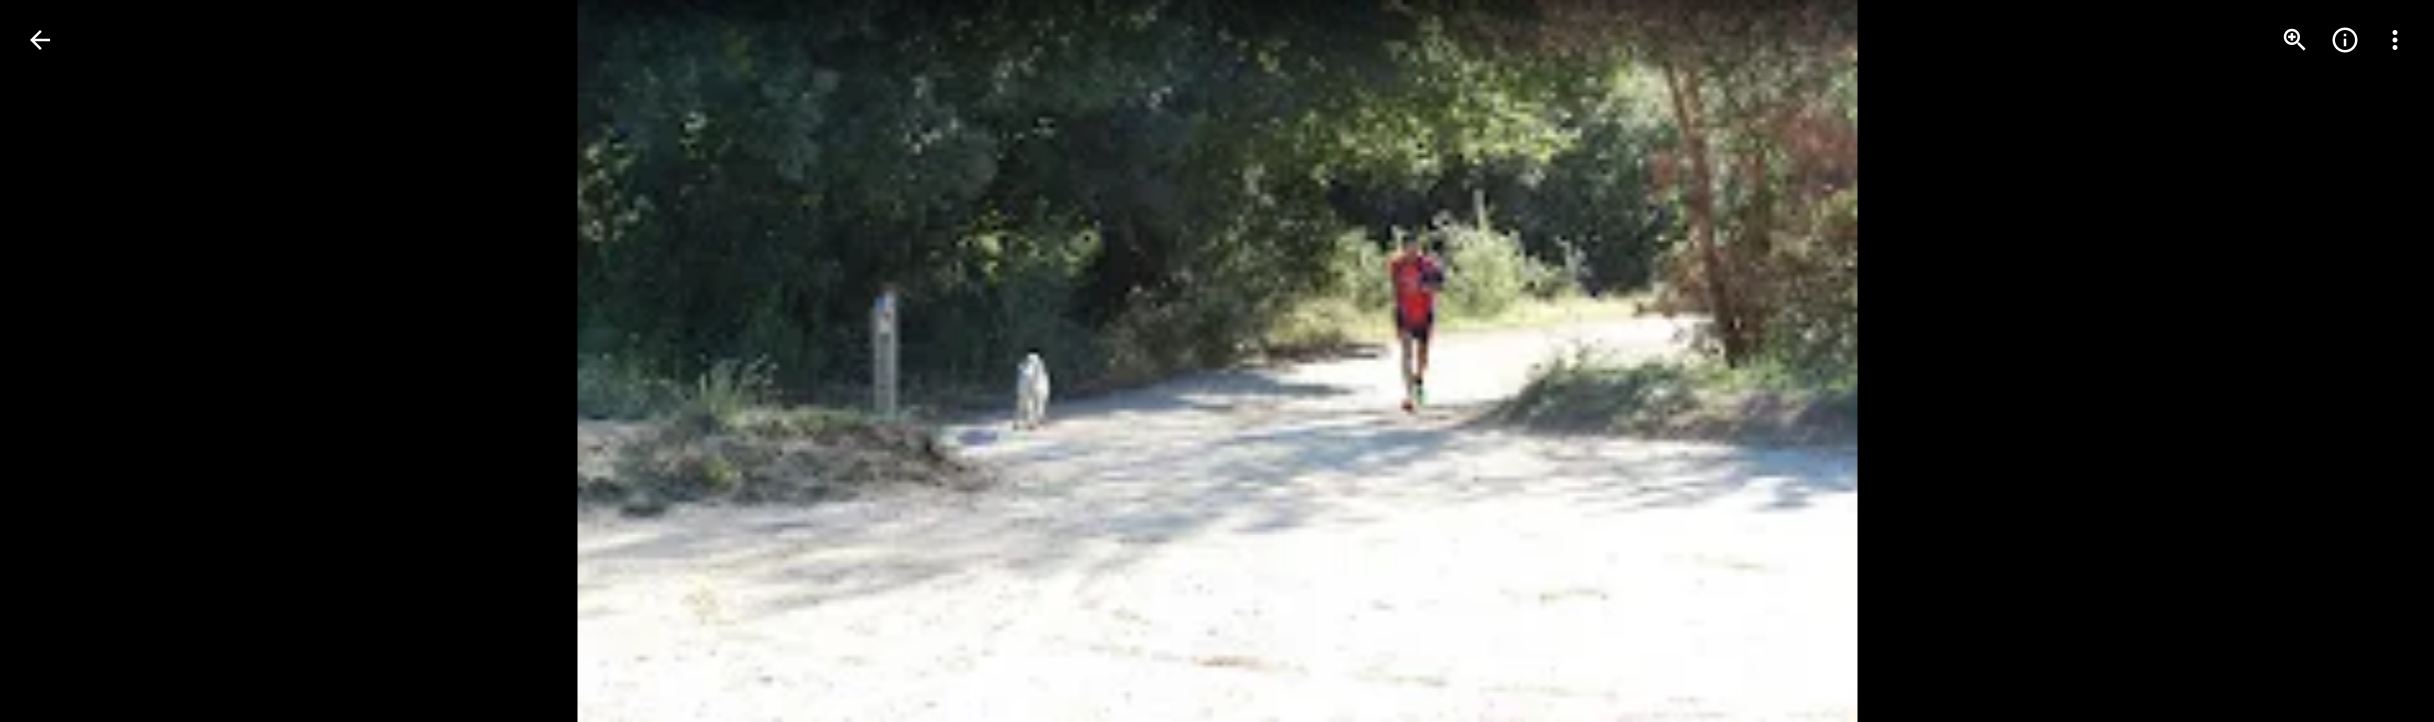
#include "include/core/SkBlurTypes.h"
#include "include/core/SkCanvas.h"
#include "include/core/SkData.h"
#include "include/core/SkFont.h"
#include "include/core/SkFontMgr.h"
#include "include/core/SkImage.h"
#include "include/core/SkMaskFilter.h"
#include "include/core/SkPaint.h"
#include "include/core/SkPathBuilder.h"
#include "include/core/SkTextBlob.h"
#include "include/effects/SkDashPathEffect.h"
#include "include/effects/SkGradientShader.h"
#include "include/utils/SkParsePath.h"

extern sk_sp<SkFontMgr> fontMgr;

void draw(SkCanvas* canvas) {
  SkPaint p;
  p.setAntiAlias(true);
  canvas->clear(SK_ColorBLACK);
  canvas->drawImageRect(SkImages::DeferredFromEncodedData(SkData::MakeFromFileName("images/5.png")), SkRect::MakeLTRB(577, 0, 1858, 722), SkSamplingOptions());
  {
    const SkColor colors[] = {SkColorSetARGB(153, 0, 0, 0), SkColorSetARGB(0, 0, 0, 0)};
    const float stops[] = {0, 1};
    const SkPoint ends[] = {{1218, 0}, {1218, 80}};
    p.setShader(SkGradientShader::MakeLinear(ends, colors, stops, 2, SkTileMode::kClamp));
    p.setAlpha(255);
  }
  canvas->drawRect(SkRect::MakeLTRB(577, 0, 1858, 77), p);
  canvas->drawImageRect(SkImages::DeferredFromEncodedData(SkData::MakeFromFileName("images/1.png")), SkRect::MakeLTRB(30, 30, 50, 50), SkSamplingOptions());
  canvas->drawImageRect(SkImages::DeferredFromEncodedData(SkData::MakeFromFileName("images/2.png")), SkRect::MakeLTRB(2283, 28, 2306, 51), SkSamplingOptions());
  canvas->drawImageRect(SkImages::DeferredFromEncodedData(SkData::MakeFromFileName("images/3.png")), SkRect::MakeLTRB(2332, 27, 2358, 53), SkSamplingOptions());
  canvas->drawImageRect(SkImages::DeferredFromEncodedData(SkData::MakeFromFileName("images/4.png")), SkRect::MakeLTRB(2392, 30, 2398, 50), SkSamplingOptions());
}
